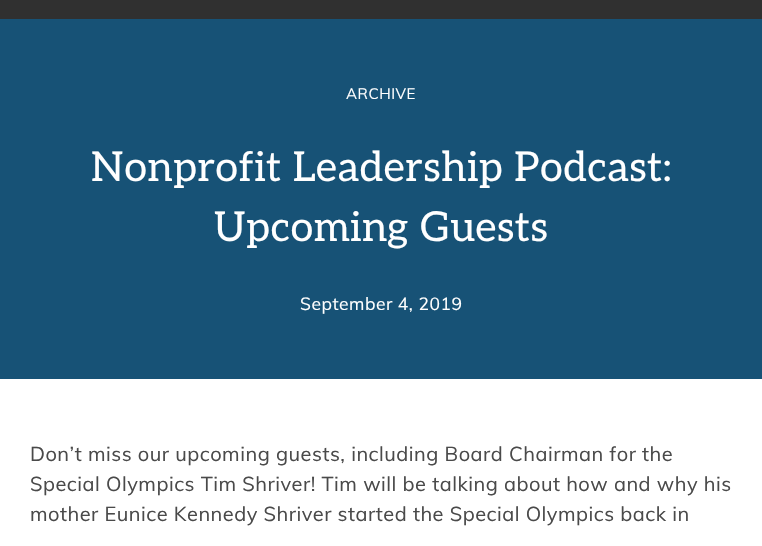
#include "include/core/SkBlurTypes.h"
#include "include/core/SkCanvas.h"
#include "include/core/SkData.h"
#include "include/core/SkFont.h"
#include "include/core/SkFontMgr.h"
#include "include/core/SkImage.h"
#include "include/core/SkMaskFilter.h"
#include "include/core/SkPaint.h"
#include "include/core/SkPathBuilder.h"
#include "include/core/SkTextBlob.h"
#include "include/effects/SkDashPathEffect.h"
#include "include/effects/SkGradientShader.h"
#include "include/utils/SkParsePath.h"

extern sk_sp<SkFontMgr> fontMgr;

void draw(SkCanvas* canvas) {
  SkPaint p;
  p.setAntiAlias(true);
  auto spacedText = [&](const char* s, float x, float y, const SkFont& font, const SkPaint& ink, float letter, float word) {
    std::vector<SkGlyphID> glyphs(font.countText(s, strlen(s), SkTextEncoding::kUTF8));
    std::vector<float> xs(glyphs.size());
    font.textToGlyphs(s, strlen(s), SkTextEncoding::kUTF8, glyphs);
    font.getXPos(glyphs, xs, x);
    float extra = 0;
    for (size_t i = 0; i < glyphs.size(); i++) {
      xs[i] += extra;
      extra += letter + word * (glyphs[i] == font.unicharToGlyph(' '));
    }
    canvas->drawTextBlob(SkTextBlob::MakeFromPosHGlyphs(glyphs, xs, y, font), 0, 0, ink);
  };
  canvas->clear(SK_ColorWHITE);
  p.setColor(SkColorSetRGB(48, 48, 48));
  canvas->drawRect(SkRect::MakeLTRB(0, 0, 762, 19), p);
  p.setColor(SkColorSetRGB(23, 82, 118));
  canvas->drawRect(SkRect::MakeLTRB(0, 19, 762, 379), p);
  SkFont font1(fontMgr->matchFamilyStyle("Muli", SkFontStyle::Normal()), 15);
  font1.setSubpixel(true);
  p.setColor(SK_ColorWHITE);
  spacedText("ARCHIVE", 346, 99, font1, p, 0.5f, 0);
  SkFont font2(fontMgr->matchFamilyStyle("Aleo", SkFontStyle::Normal()), 41.25f);
  font2.setSubpixel(true);
  spacedText("Nonprofit Leadership Podcast:", 91, 181, font2, p, 0.5f, 0);
  spacedText("Upcoming Guests", 214, 241, font2, p, 0.5f, 0);
  SkFont font3(fontMgr->matchFamilyStyle("Muli", SkFontStyle::Normal()), 17.5f);
  font3.setSubpixel(true);
  spacedText("September 4, 2019", 300, 310, font3, p, 0.5f, 0);
  SkFont font4(fontMgr->matchFamilyStyle("Muli", SkFontStyle::Normal()), 20);
  font4.setSubpixel(true);
  p.setColor(SkColorSetRGB(74, 74, 74));
  spacedText("Don’t miss our upcoming guests, including Board Chairman for the", 30, 461, font4, p, 0.5f, 0);
  spacedText("Special Olympics Tim Shriver! Tim will be talking about how and why his", 30, 491, font4, p, 0.5f, 0);
  spacedText("mother Eunice Kennedy Shriver started the Special Olympics back in", 30, 521, font4, p, 0.5f, 0);
}
